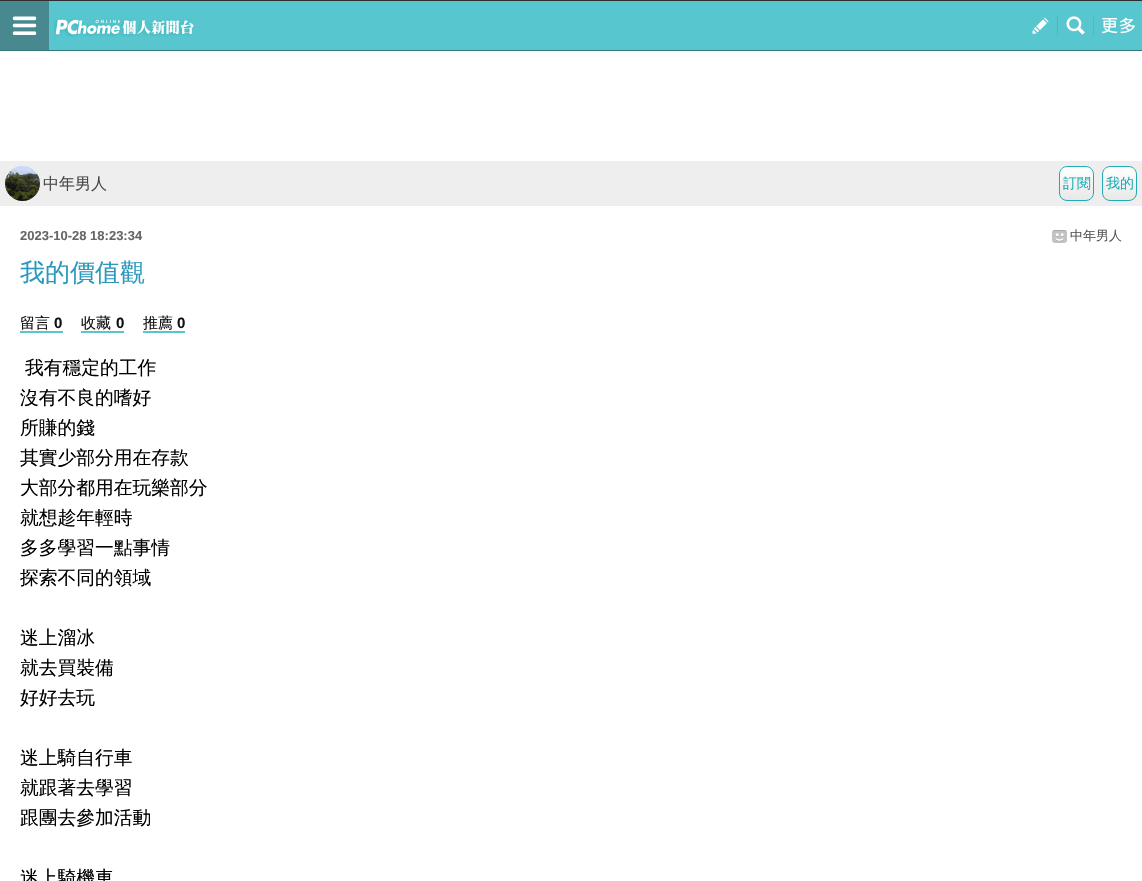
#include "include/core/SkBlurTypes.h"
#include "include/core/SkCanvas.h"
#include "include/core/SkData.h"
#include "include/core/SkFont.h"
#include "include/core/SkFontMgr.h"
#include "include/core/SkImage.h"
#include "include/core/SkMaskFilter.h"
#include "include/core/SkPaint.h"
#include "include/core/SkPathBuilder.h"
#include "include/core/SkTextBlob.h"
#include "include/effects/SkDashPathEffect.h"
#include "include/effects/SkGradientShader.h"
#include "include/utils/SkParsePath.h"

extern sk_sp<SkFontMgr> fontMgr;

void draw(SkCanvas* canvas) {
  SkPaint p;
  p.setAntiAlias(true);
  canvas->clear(SK_ColorWHITE);
  p.setColor(SkColorSetRGB(88, 198, 206));
  canvas->drawRect(SkRect::MakeLTRB(0, 1, 1142, 50), p);
  p.setColor(SkColorSetRGB(47, 47, 47));
  canvas->drawRect(SkRect::MakeLTRB(0, 0, 1142, 1), p);
  p.setColor(SkColorSetRGB(52, 120, 125));
  canvas->drawRect(SkRect::MakeLTRB(0, 50, 1142, 51), p);
  canvas->drawImageRect(SkImages::DeferredFromEncodedData(SkData::MakeFromFileName("images/1.png")), SkRect::MakeLTRB(0, 1, 49, 50), SkSamplingOptions());
  canvas->drawImageRect(SkImages::DeferredFromEncodedData(SkData::MakeFromFileName("images/2.png")), SkRect::MakeLTRB(54, 18, 194, 37), SkSamplingOptions());
  canvas->drawImageRect(SkImages::DeferredFromEncodedData(SkData::MakeFromFileName("images/3.png")), SkRect::MakeLTRB(1032, 15, 1058, 35), SkSamplingOptions());
  canvas->drawImageRect(SkImages::DeferredFromEncodedData(SkData::MakeFromFileName("images/4.png")), SkRect::MakeLTRB(1066, 16, 1085, 35), SkSamplingOptions());
  canvas->drawImageRect(SkImages::DeferredFromEncodedData(SkData::MakeFromFileName("images/5.png")), SkRect::MakeLTRB(1093, 16, 1135, 36), SkSamplingOptions());
  p.setColor(SkColorSetRGB(238, 238, 238));
  canvas->drawRect(SkRect::MakeLTRB(0, 161, 1142, 206), p);
  canvas->drawImageRect(SkImages::DeferredFromEncodedData(SkData::MakeFromFileName("images/6.png")), SkRect::MakeLTRB(5, 166, 40, 201), SkSamplingOptions());
  canvas->save();
  canvas->clipPath(SkPathBuilder().moveTo(1067, 166).lineTo(1086, 166).cubicTo(1090.5f, 166, 1094, 169.5f, 1094, 174).lineTo(1094, 193).cubicTo(1094, 197.5f, 1090.5f, 201, 1086, 201).lineTo(1067, 201).cubicTo(1062.5f, 201, 1059, 197.5f, 1059, 193).lineTo(1059, 174).cubicTo(1059, 169.5f, 1062.5f, 166, 1067, 166).close().detach(), true);
  {
    const SkColor colors[] = {SK_ColorWHITE, SkColorSetRGB(232, 232, 232)};
    const float stops[] = {0, 1};
    const SkPoint ends[] = {{1077, 167}, {1077, 200}};
    p.setShader(SkGradientShader::MakeLinear(ends, colors, stops, 2, SkTileMode::kClamp));
    p.setAlpha(255);
  }
  canvas->drawRect(SkRect::MakeLTRB(1059, 167, 1094, 200), p);
  canvas->restore();
  p.setStyle(SkPaint::kStroke_Style);
  p.setStrokeWidth(1);
  p.setShader(nullptr);
  p.setColor(SkColorSetRGB(31, 172, 182));
  canvas->drawRoundRect(SkRect::MakeLTRB(1059.5f, 166.5f, 1093.5f, 200.5f), 7.5f, 7.5f, p);
  canvas->save();
  canvas->clipPath(SkPathBuilder().moveTo(1110, 166).lineTo(1129, 166).cubicTo(1133.5f, 166, 1137, 169.5f, 1137, 174).lineTo(1137, 193).cubicTo(1137, 197.5f, 1133.5f, 201, 1129, 201).lineTo(1110, 201).cubicTo(1105.5f, 201, 1102, 197.5f, 1102, 193).lineTo(1102, 174).cubicTo(1102, 169.5f, 1105.5f, 166, 1110, 166).close().detach(), true);
  p.setStyle(SkPaint::kFill_Style);
  {
    const SkColor colors[] = {SK_ColorWHITE, SkColorSetRGB(232, 232, 232)};
    const float stops[] = {0, 1};
    const SkPoint ends[] = {{1120, 167}, {1120, 200}};
    p.setShader(SkGradientShader::MakeLinear(ends, colors, stops, 2, SkTileMode::kClamp));
    p.setAlpha(255);
  }
  canvas->drawRect(SkRect::MakeLTRB(1102, 167, 1137, 200), p);
  canvas->restore();
  p.setStyle(SkPaint::kStroke_Style);
  p.setShader(nullptr);
  p.setColor(SkColorSetRGB(31, 172, 182));
  canvas->drawRoundRect(SkRect::MakeLTRB(1102.5f, 166.5f, 1136.5f, 200.5f), 7.5f, 7.5f, p);
  canvas->drawImageRect(SkImages::DeferredFromEncodedData(SkData::MakeFromFileName("images/7.png")), SkRect::MakeLTRB(1052, 230, 1067, 243), SkSamplingOptions());
  p.setStyle(SkPaint::kFill_Style);
  p.setColor(SkColorSetRGB(88, 198, 206));
  canvas->drawRect(SkRect::MakeLTRB(20, 331, 63, 333), p);
  canvas->drawRect(SkRect::MakeLTRB(81, 331, 124, 333), p);
  canvas->drawRect(SkRect::MakeLTRB(143, 331, 185, 333), p);
  SkFont font1(fontMgr->matchFamilyStyle("WenQuanYi Zen Hei", SkFontStyle(500, SkFontStyle::kNormal_Width, SkFontStyle::kUpright_Slant)), 16);
  font1.setSubpixel(true);
  p.setColor(SkColorSetRGB(72, 72, 72));
  canvas->drawString("中年男人", 43, 189, font1, p);
  SkFont font2(fontMgr->matchFamilyStyle("WenQuanYi Zen Hei", SkFontStyle(500, SkFontStyle::kNormal_Width, SkFontStyle::kUpright_Slant)), 14);
  font2.setSubpixel(true);
  p.setColor(SkColorSetRGB(31, 172, 182));
  canvas->drawString("訂閱", 1063, 188, font2, p);
  canvas->drawString("我的", 1106, 188, font2, p);
  SkFont font3(fontMgr->matchFamilyStyle("Liberation Sans", SkFontStyle::Bold()), 13);
  font3.setSubpixel(true);
  p.setColor(SkColorSetRGB(102, 102, 102));
  canvas->drawString("2023-10-28 18:23:34", 20, 240, font3, p);
  SkFont font4(fontMgr->matchFamilyStyle("WenQuanYi Zen Hei", SkFontStyle(500, SkFontStyle::kNormal_Width, SkFontStyle::kUpright_Slant)), 13);
  font4.setSubpixel(true);
  p.setColor(SkColorSetRGB(83, 83, 83));
  canvas->drawString("中年男人", 1070, 240, font4, p);
  SkFont font5(fontMgr->matchFamilyStyle("WenQuanYi Zen Hei", SkFontStyle(500, SkFontStyle::kNormal_Width, SkFontStyle::kUpright_Slant)), 25);
  font5.setSubpixel(true);
  p.setColor(SkColorSetRGB(44, 153, 188));
  canvas->drawString("我的價值觀", 20, 281, font5, p);
  SkFont font6(fontMgr->matchFamilyStyle("WenQuanYi Zen Hei", SkFontStyle(500, SkFontStyle::kNormal_Width, SkFontStyle::kUpright_Slant)), 15);
  font6.setSubpixel(true);
  p.setColor(SkColorSetRGB(17, 17, 17));
  canvas->drawString("留言", 20, 328, font6, p);
  SkFont font7(fontMgr->matchFamilyStyle("Liberation Sans", SkFontStyle::Bold()), 15);
  font7.setSubpixel(true);
  canvas->drawString("0", 54, 328, font7, p);
  canvas->drawString("收藏", 81, 328, font6, p);
  canvas->drawString("0", 116, 328, font7, p);
  canvas->drawString("推薦", 143, 328, font6, p);
  canvas->drawString("0", 177, 328, font7, p);
  SkFont font8(fontMgr->matchFamilyStyle("WenQuanYi Zen Hei", SkFontStyle(500, SkFontStyle::kNormal_Width, SkFontStyle::kUpright_Slant)), 18.75f);
  font8.setSubpixel(true);
  p.setColor(SK_ColorBLACK);
  canvas->drawString("我有穩定的工作", 25, 374, font8, p);
  canvas->drawString("沒有不良的嗜好", 20, 404, font8, p);
  canvas->drawString("所賺的錢", 20, 434, font8, p);
  canvas->drawString("其實少部分用在存款", 20, 464, font8, p);
  canvas->drawString("大部分都用在玩樂部分", 20, 494, font8, p);
  canvas->drawString("就想趁年輕時", 20, 524, font8, p);
  canvas->drawString("多多學習一點事情", 20, 554, font8, p);
  canvas->drawString("探索不同的領域", 20, 584, font8, p);
  canvas->drawString("迷上溜冰", 20, 644, font8, p);
  canvas->drawString("就去買裝備", 20, 674, font8, p);
  canvas->drawString("好好去玩", 20, 704, font8, p);
  canvas->drawString("迷上騎自行車", 20, 764, font8, p);
  canvas->drawString("就跟著去學習", 20, 794, font8, p);
  canvas->drawString("跟團去參加活動", 20, 824, font8, p);
  canvas->drawString("迷上騎機車", 20, 884, font8, p);
}
